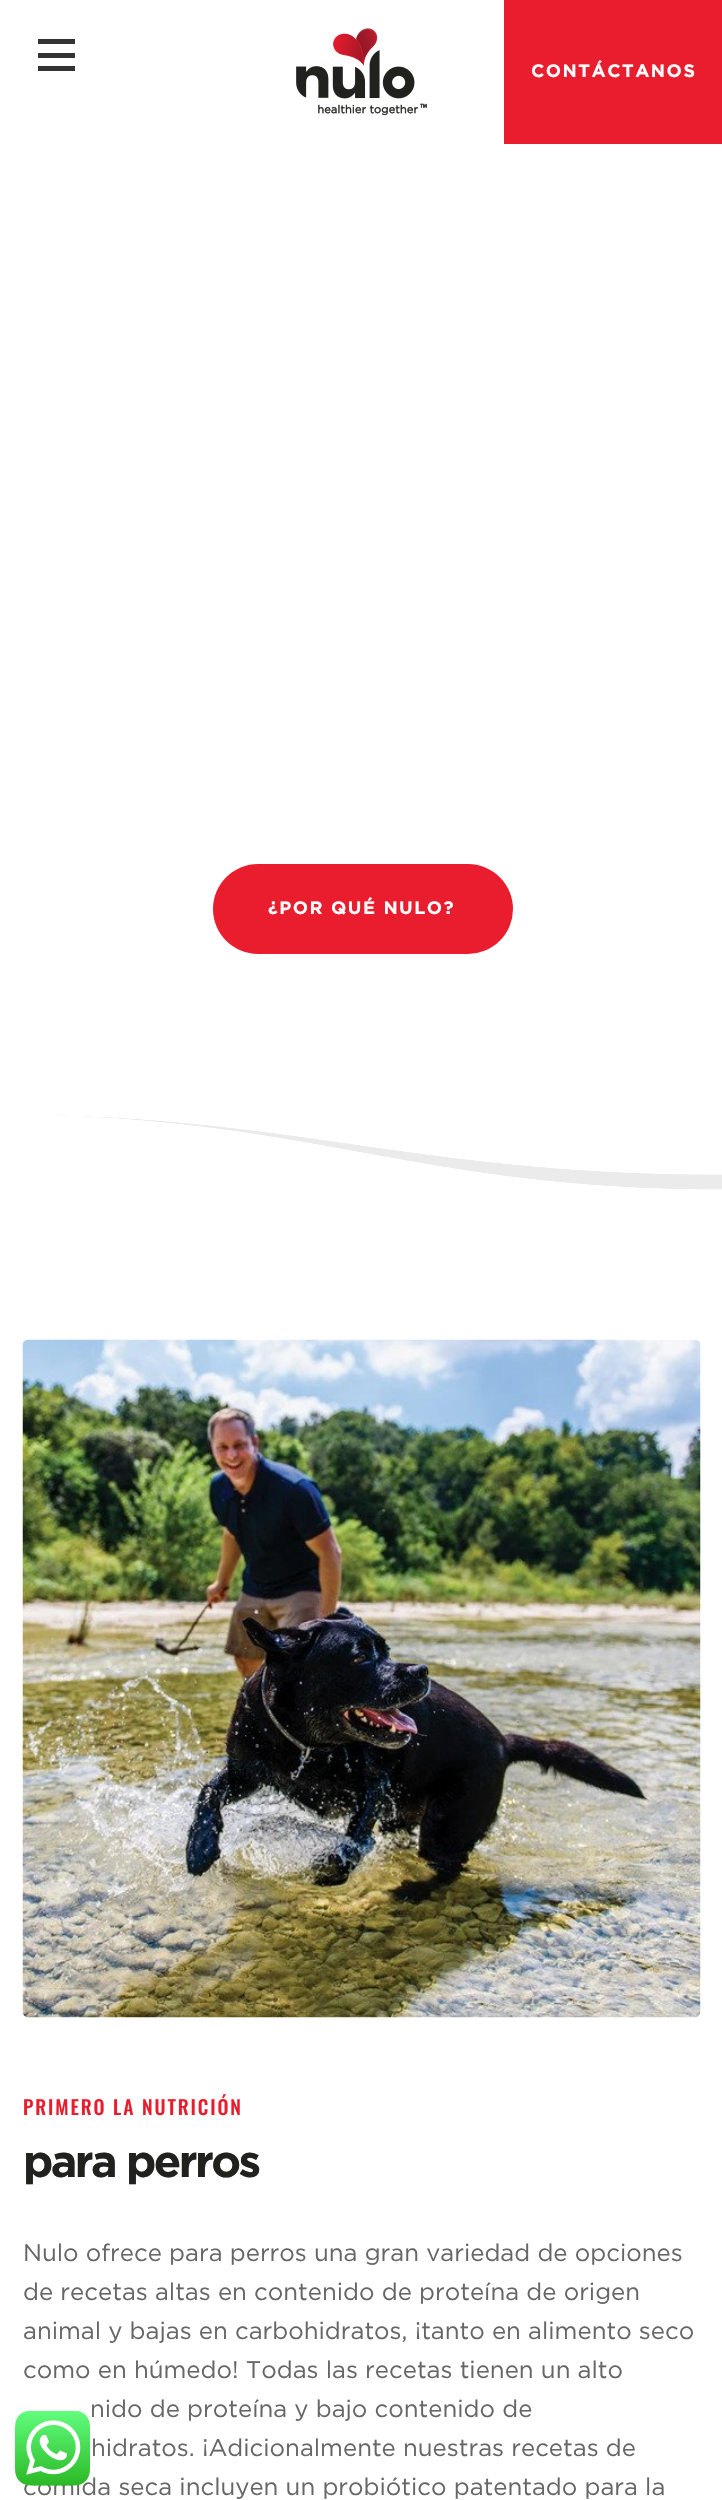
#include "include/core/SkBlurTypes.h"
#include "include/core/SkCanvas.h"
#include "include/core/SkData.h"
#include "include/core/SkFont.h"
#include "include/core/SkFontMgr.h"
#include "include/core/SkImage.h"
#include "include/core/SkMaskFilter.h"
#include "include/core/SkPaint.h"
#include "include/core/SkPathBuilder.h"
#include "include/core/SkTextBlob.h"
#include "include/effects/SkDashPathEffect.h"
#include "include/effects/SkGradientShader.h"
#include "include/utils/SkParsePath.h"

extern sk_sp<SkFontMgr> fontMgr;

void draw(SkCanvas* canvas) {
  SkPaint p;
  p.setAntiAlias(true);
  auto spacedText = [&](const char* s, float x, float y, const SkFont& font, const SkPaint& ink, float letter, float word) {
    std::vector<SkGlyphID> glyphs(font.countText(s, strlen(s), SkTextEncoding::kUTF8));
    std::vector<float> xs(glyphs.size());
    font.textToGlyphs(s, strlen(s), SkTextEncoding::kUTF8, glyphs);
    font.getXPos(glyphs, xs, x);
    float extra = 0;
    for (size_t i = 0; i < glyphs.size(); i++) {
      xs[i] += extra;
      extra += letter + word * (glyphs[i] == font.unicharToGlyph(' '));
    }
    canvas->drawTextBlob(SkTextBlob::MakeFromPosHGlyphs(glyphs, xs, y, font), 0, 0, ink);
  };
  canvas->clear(SK_ColorWHITE);
  p.setColor(SkColorSetRGB(51, 51, 51));
  canvas->drawRect(SkRect::MakeLTRB(38, 53, 75, 58), p);
  canvas->drawRect(SkRect::MakeLTRB(38, 39, 75, 44), p);
  canvas->drawRect(SkRect::MakeLTRB(38, 66, 75, 71), p);
  canvas->drawImageRect(SkImages::DeferredFromEncodedData(SkData::MakeFromFileName("images/1.png")), SkRect::MakeLTRB(296, 28, 427, 116), SkSamplingOptions());
  p.setColor(SkColorSetRGB(233, 29, 45));
  canvas->drawRect(SkRect::MakeLTRB(504, 0, 722, 144), p);
  canvas->drawRoundRect(SkRect::MakeLTRB(213, 864, 513, 954), 45, 45, p);
  canvas->drawImageRect(SkImages::DeferredFromEncodedData(SkData::MakeFromFileName("images/2.png")), SkRect::MakeLTRB(56, 1115, 722, 1190), SkSamplingOptions());
  canvas->drawImageRect(SkImages::DeferredFromEncodedData(SkData::MakeFromFileName("images/3.png")), SkRect::MakeLTRB(22, 1339, 701, 2018), SkSamplingOptions());
  SkFont font1(fontMgr->matchFamilyStyle("Gotham", SkFontStyle::Bold()), 18);
  font1.setSubpixel(true);
  p.setColor(SK_ColorWHITE);
  spacedText("CONTÁCTANOS", 531, 77, font1, p, 1.5f, 0);
  spacedText("¿POR QUÉ NULO?", 268, 914, font1, p, 1.5f, 0);
  SkFont font2(fontMgr->matchFamilyStyle("Oswald", SkFontStyle(500, SkFontStyle::kNormal_Width, SkFontStyle::kUpright_Slant)), 19.5f);
  font2.setSubpixel(true);
  p.setColor(SkColorSetRGB(233, 29, 45));
  spacedText("PRIMERO LA NUTRICIÓN", 23, 2115, font2, p, 1.9f, 0);
  SkFont font3(fontMgr->matchFamilyStyle("Gotham", SkFontStyle::Bold()), 45);
  font3.setSubpixel(true);
  p.setColor(SkColorSetRGB(33, 34, 29));
  spacedText("para perros", 23, 2177, font3, p, -2.6f, 0);
  SkFont font4(fontMgr->matchFamilyStyle("Gotham", SkFontStyle::Normal()), 24);
  font4.setSubpixel(true);
  p.setColor(SkColorSetRGB(102, 102, 103));
  canvas->drawString("Nulo ofrece para perros una gran variedad de opciones", 23, 2261, font4, p);
  canvas->drawString("de recetas altas en contenido de proteína de origen", 23, 2300, font4, p);
  canvas->drawString("animal y bajas en carbohidratos, ¡tanto en alimento seco", 23, 2339, font4, p);
  canvas->drawString("como en húmedo! Todas las recetas tienen un alto", 23, 2378, font4, p);
  canvas->drawString("nido de proteína y bajo contenido de", 90, 2417, font4, p);
  canvas->drawString("hidratos. ¡Adicionalmente nuestras recetas de", 91, 2456, font4, p);
  canvas->drawString("comida seca incluyen un probiótico patentado para la", 23, 2495, font4, p);
  canvas->drawImageRect(SkImages::DeferredFromEncodedData(SkData::MakeFromFileName("images/4.png")), SkRect::MakeLTRB(15, 2411, 90, 2486), SkSamplingOptions());
}
